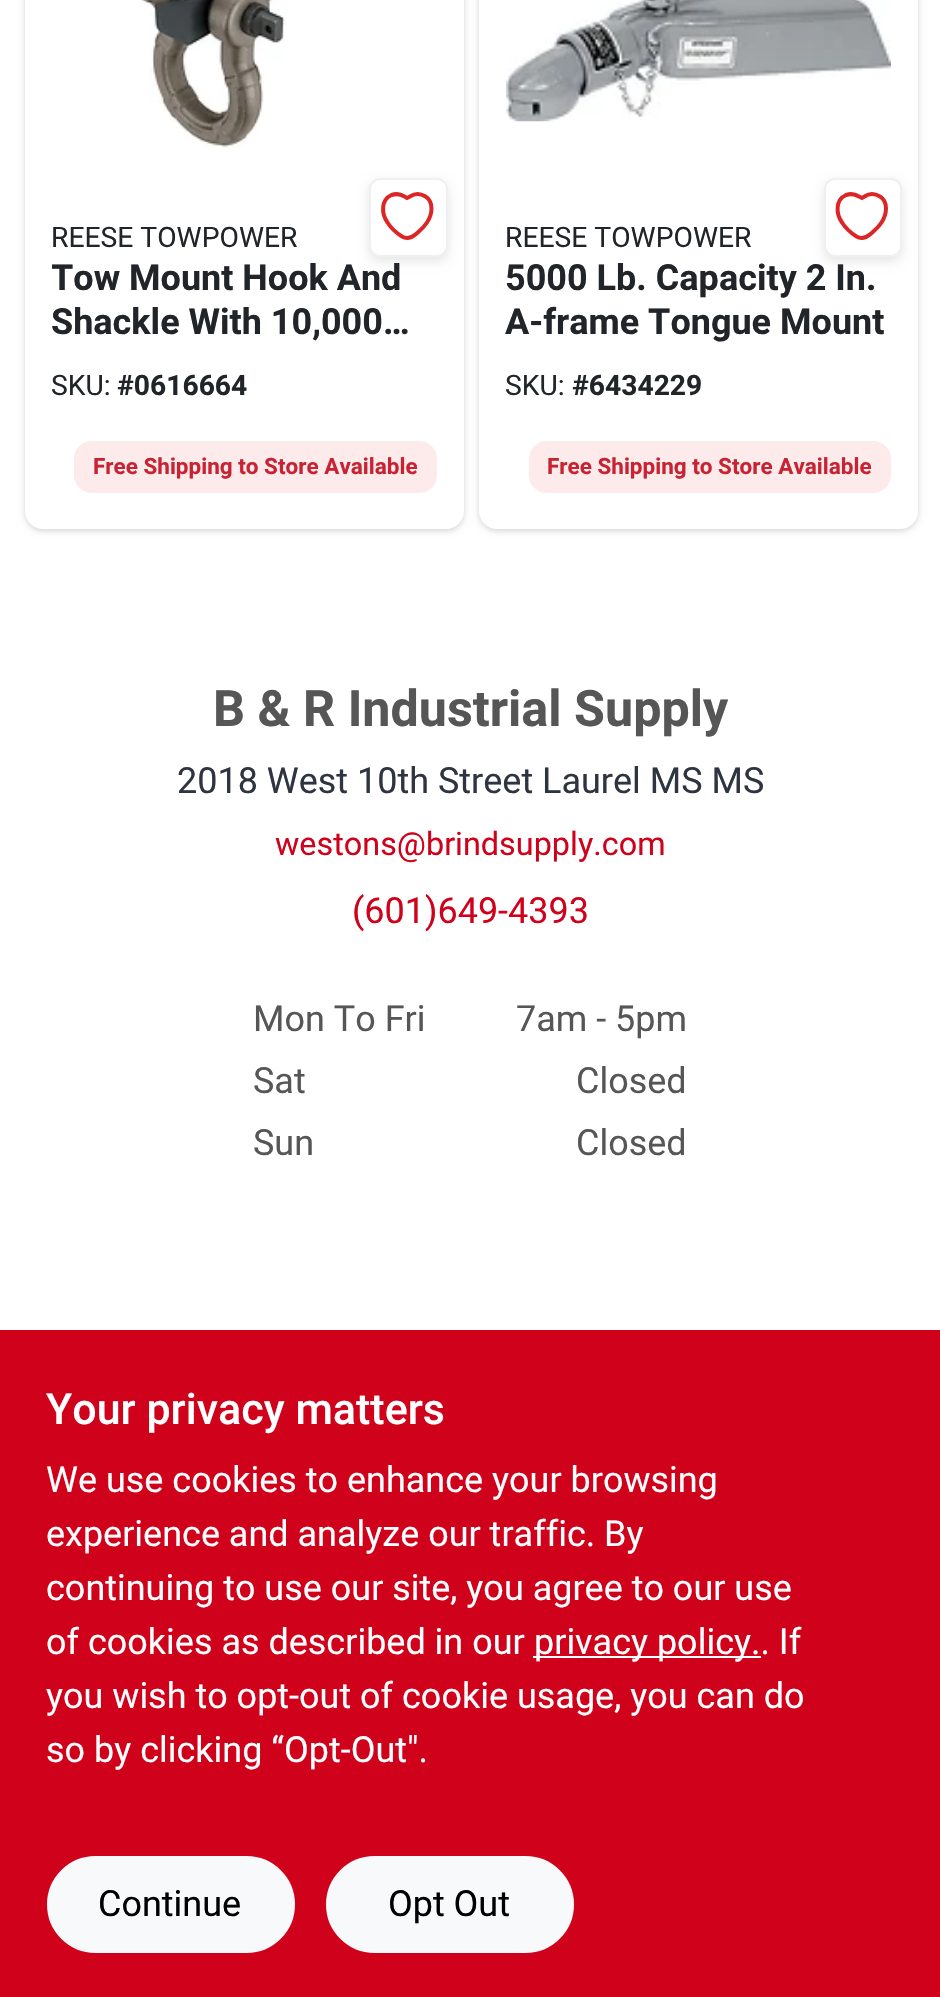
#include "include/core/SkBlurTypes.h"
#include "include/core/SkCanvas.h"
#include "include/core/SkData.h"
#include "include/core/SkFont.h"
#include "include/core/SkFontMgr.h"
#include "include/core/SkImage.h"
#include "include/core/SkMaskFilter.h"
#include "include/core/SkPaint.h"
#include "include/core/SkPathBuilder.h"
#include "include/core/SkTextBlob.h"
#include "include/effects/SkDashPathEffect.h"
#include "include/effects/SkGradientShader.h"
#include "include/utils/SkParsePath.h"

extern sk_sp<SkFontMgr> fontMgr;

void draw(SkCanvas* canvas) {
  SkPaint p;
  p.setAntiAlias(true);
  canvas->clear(SK_ColorWHITE);
  p.setColor(SkColorSetARGB(15, 0, 0, 0));
  p.setMaskFilter(SkMaskFilter::MakeBlur(kNormal_SkBlurStyle, 2));
  canvas->drawRoundRect(SkRect::MakeLTRB(25, -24, 464, 531), 18, 18, p);
  p.setMaskFilter(nullptr);
  p.setColor(SkColorSetARGB(26, 0, 0, 0));
  p.setMaskFilter(SkMaskFilter::MakeBlur(kNormal_SkBlurStyle, 3.5f));
  canvas->drawRoundRect(SkRect::MakeLTRB(25, -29, 464, 531), 18, 18, p);
  p.setMaskFilter(nullptr);
  p.setColor(SK_ColorWHITE);
  canvas->drawRoundRect(SkRect::MakeLTRB(25, -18, 464, 529), 18, 18, p);
  canvas->drawImageRect(SkImages::DeferredFromEncodedData(SkData::MakeFromFileName("images/1.png")), SkRect::MakeLTRB(141, 0, 286, 148), SkSamplingOptions());
  p.setColor(SkColorSetARGB(26, 0, 0, 0));
  p.setMaskFilter(SkMaskFilter::MakeBlur(kNormal_SkBlurStyle, 5.5f));
  canvas->drawRoundRect(SkRect::MakeLTRB(369, 182, 448, 261), 11, 11, p);
  p.setMaskFilter(nullptr);
  p.setColor(SK_ColorWHITE);
  canvas->drawRoundRect(SkRect::MakeLTRB(370, 179, 447, 256), 10, 10, p);
  p.setStyle(SkPaint::kStroke_Style);
  p.setStrokeWidth(2);
  p.setColor(SkColorSetRGB(240, 240, 240));
  canvas->drawRoundRect(SkRect::MakeLTRB(370, 179, 447, 256), 10, 10, p);
  p.setStrokeWidth(4);
  p.setStrokeCap(SkPaint::kRound_Cap);
  p.setColor(SkColorSetRGB(220, 38, 38));
  canvas->drawPath(SkPathBuilder().moveTo(425.5f, 196.5f).cubicTo(420.5f, 193.5f, 414.5f, 193.5f, 410, 196.5f).lineTo(407, 198).lineTo(404.5f, 196.5f).cubicTo(400.5f, 194, 396, 193.5f, 391.5f, 195).cubicTo(380.5f, 200, 381.5f, 214, 387.5f, 222.5f).cubicTo(391, 228, 396.5f, 233, 402, 236.5f).cubicTo(407, 239.5f, 412, 237.5f, 416, 234).cubicTo(421, 229.5f, 423.5f, 228, 427, 222.5f).cubicTo(432, 215, 434.5f, 202, 425.5f, 196.5f).close().detach(), p);
  p.setStyle(SkPaint::kFill_Style);
  p.setColor(SkColorSetRGB(253, 234, 234));
  canvas->drawRoundRect(SkRect::MakeLTRB(74, 441, 437, 493), 18, 18, p);
  p.setColor(SkColorSetARGB(15, 0, 0, 0));
  p.setMaskFilter(SkMaskFilter::MakeBlur(kNormal_SkBlurStyle, 2));
  canvas->drawRoundRect(SkRect::MakeLTRB(479, -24, 918, 531), 18, 18, p);
  p.setMaskFilter(nullptr);
  p.setColor(SkColorSetARGB(26, 0, 0, 0));
  p.setMaskFilter(SkMaskFilter::MakeBlur(kNormal_SkBlurStyle, 3.5f));
  canvas->drawRoundRect(SkRect::MakeLTRB(479, -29, 918, 531), 18, 18, p);
  p.setMaskFilter(nullptr);
  p.setColor(SK_ColorWHITE);
  canvas->drawRoundRect(SkRect::MakeLTRB(479, -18, 918, 529), 18, 18, p);
  canvas->drawImageRect(SkImages::DeferredFromEncodedData(SkData::MakeFromFileName("images/2.png")), SkRect::MakeLTRB(506, 0, 891, 122), SkSamplingOptions());
  p.setColor(SkColorSetARGB(26, 0, 0, 0));
  p.setMaskFilter(SkMaskFilter::MakeBlur(kNormal_SkBlurStyle, 5.5f));
  canvas->drawRoundRect(SkRect::MakeLTRB(824, 182, 902, 261), 11, 11, p);
  p.setMaskFilter(nullptr);
  p.setColor(SK_ColorWHITE);
  canvas->drawRoundRect(SkRect::MakeLTRB(825, 179, 901, 256), 10, 10, p);
  p.setStyle(SkPaint::kStroke_Style);
  p.setStrokeWidth(2);
  p.setStrokeCap(SkPaint::kButt_Cap);
  p.setColor(SkColorSetRGB(240, 240, 240));
  canvas->drawRoundRect(SkRect::MakeLTRB(825, 179, 901, 256), 10, 10, p);
  p.setStrokeWidth(4);
  p.setStrokeCap(SkPaint::kRound_Cap);
  p.setColor(SkColorSetRGB(220, 38, 38));
  canvas->drawPath(SkPathBuilder().moveTo(880, 196.5f).cubicTo(875, 193.5f, 869, 193.5f, 864.5f, 196.5f).lineTo(862, 198).lineTo(859, 196.5f).cubicTo(855, 194, 850.5f, 193.5f, 846, 195).cubicTo(835, 200, 836, 214, 842, 222.5f).cubicTo(845.5f, 228, 851, 233, 856.5f, 236.5f).cubicTo(861.5f, 239.5f, 866.5f, 237.5f, 870.5f, 234).cubicTo(875.5f, 229.5f, 878, 228, 881.5f, 222.5f).cubicTo(886.5f, 215, 889, 202, 880, 196.5f).close().detach(), p);
  p.setStyle(SkPaint::kFill_Style);
  p.setColor(SkColorSetRGB(253, 234, 234));
  canvas->drawRoundRect(SkRect::MakeLTRB(529, 441, 891, 493), 18, 18, p);
  p.setColor(SkColorSetRGB(208, 2, 27));
  canvas->drawRect(SkRect::MakeLTRB(0, 1330, 940, 1997), p);
  p.setColor(SK_ColorWHITE);
  canvas->drawRect(SkRect::MakeLTRB(533, 1656, 761, 1658), p);
  p.setColor(SkColorSetRGB(248, 249, 250));
  canvas->drawRoundRect(SkRect::MakeLTRB(48, 1857, 294, 1952), 47.5f, 47.5f, p);
  p.setStyle(SkPaint::kStroke_Style);
  p.setStrokeWidth(2);
  p.setStrokeCap(SkPaint::kButt_Cap);
  canvas->drawRoundRect(SkRect::MakeLTRB(48, 1857, 294, 1952), 47.5f, 47.5f, p);
  p.setStyle(SkPaint::kFill_Style);
  canvas->drawRoundRect(SkRect::MakeLTRB(327, 1857, 573, 1952), 47.5f, 47.5f, p);
  p.setStyle(SkPaint::kStroke_Style);
  canvas->drawRoundRect(SkRect::MakeLTRB(327, 1857, 573, 1952), 47.5f, 47.5f, p);
  SkFont font1(fontMgr->matchFamilyStyle("Roboto", SkFontStyle::Normal()), 28.25f);
  font1.setSubpixel(true);
  p.setStyle(SkPaint::kFill_Style);
  p.setColor(SkColorSetRGB(33, 37, 41));
  canvas->drawString("REESE TOWPOWER", 51, 247, font1, p);
  canvas->save();
  canvas->clipRect(SkRect::MakeLTRB(52, 257, 437, 347));
  SkFont font2(fontMgr->matchFamilyStyle("Roboto", SkFontStyle::Bold()), 36);
  font2.setSubpixel(true);
  canvas->drawString("Tow Mount Hook And", 51, 290, font2, p);
  canvas->restore();
  canvas->drawString("Shackle With 10,000…", 51, 334, font2, p);
  canvas->drawString("SKU:", 51, 395, font1, p);
  SkFont font3(fontMgr->matchFamilyStyle("Roboto", SkFontStyle::Bold()), 28.25f);
  font3.setSubpixel(true);
  canvas->drawString("#0616664", 117, 395, font3, p);
  SkFont font4(fontMgr->matchFamilyStyle("Roboto", SkFontStyle::Bold()), 22.5f);
  font4.setSubpixel(true);
  p.setColor(SkColorSetRGB(200, 35, 51));
  canvas->drawString("Free Shipping to Store Available", 93, 474, font4, p);
  p.setColor(SkColorSetRGB(33, 37, 41));
  canvas->drawString("REESE TOWPOWER", 505, 247, font1, p);
  canvas->drawString("5000 Lb. Capacity 2 In.", 505, 290, font2, p);
  canvas->drawString("A-frame Tongue Mount", 505, 334, font2, p);
  canvas->drawString("SKU:", 505, 395, font1, p);
  canvas->drawString("#6434229", 572, 395, font3, p);
  p.setColor(SkColorSetRGB(200, 35, 51));
  canvas->drawString("Free Shipping to Store Available", 547, 474, font4, p);
  SkFont font5(fontMgr->matchFamilyStyle("Roboto", SkFontStyle::Bold()), 50.25f);
  font5.setSubpixel(true);
  p.setColor(SkColorSetRGB(86, 86, 86));
  canvas->drawString("B & R Industrial Supply", 213, 726, font5, p);
  SkFont font6(fontMgr->matchFamilyStyle("Roboto", SkFontStyle::Normal()), 36);
  font6.setSubpixel(true);
  p.setColor(SkColorSetRGB(47, 53, 64));
  canvas->drawString("2018 West 10th Street Laurel MS MS", 177, 793, font6, p);
  SkFont font7(fontMgr->matchFamilyStyle("Roboto", SkFontStyle::Normal()), 32.4f);
  font7.setSubpixel(true);
  p.setColor(SkColorSetRGB(208, 2, 27));
  canvas->drawString("westons@brindsupply.com", 275, 855, font7, p);
  canvas->drawString("(601)649-4393", 352, 923, font6, p);
  p.setColor(SkColorSetRGB(86, 86, 86));
  canvas->drawString("Mon To Fri", 253, 1031, font6, p);
  canvas->drawString("Sat", 253, 1093, font6, p);
  canvas->drawString("Sun", 253, 1155, font6, p);
  canvas->drawString("7am - 5pm", 516, 1031, font6, p);
  canvas->drawString("Closed", 576, 1093, font6, p);
  canvas->drawString("Closed", 576, 1155, font6, p);
  SkFont font8(fontMgr->matchFamilyStyle("Roboto", SkFontStyle(500, SkFontStyle::kNormal_Width, SkFontStyle::kUpright_Slant)), 43);
  font8.setSubpixel(true);
  p.setColor(SK_ColorWHITE);
  canvas->drawString("Your privacy matters", 46, 1424, font8, p);
  canvas->drawString("We use cookies to enhance your browsing", 46, 1492, font6, p);
  canvas->drawString("experience and analyze our traffic. By", 46, 1546, font6, p);
  canvas->drawString("continuing to use our site, you agree to our use", 46, 1600, font6, p);
  canvas->drawString("of cookies as described in our", 46, 1654, font6, p);
  canvas->drawString("privacy policy.. If", 534, 1654, font6, p);
  canvas->drawString("you wish to opt-out of cookie usage, you can do", 46, 1708, font6, p);
  canvas->drawString("so by clicking “Opt-Out\".", 46, 1762, font6, p);
  p.setColor(SK_ColorBLACK);
  canvas->drawString("Continue", 98, 1916, font6, p);
  canvas->drawString("Opt Out", 388, 1916, font6, p);
}
